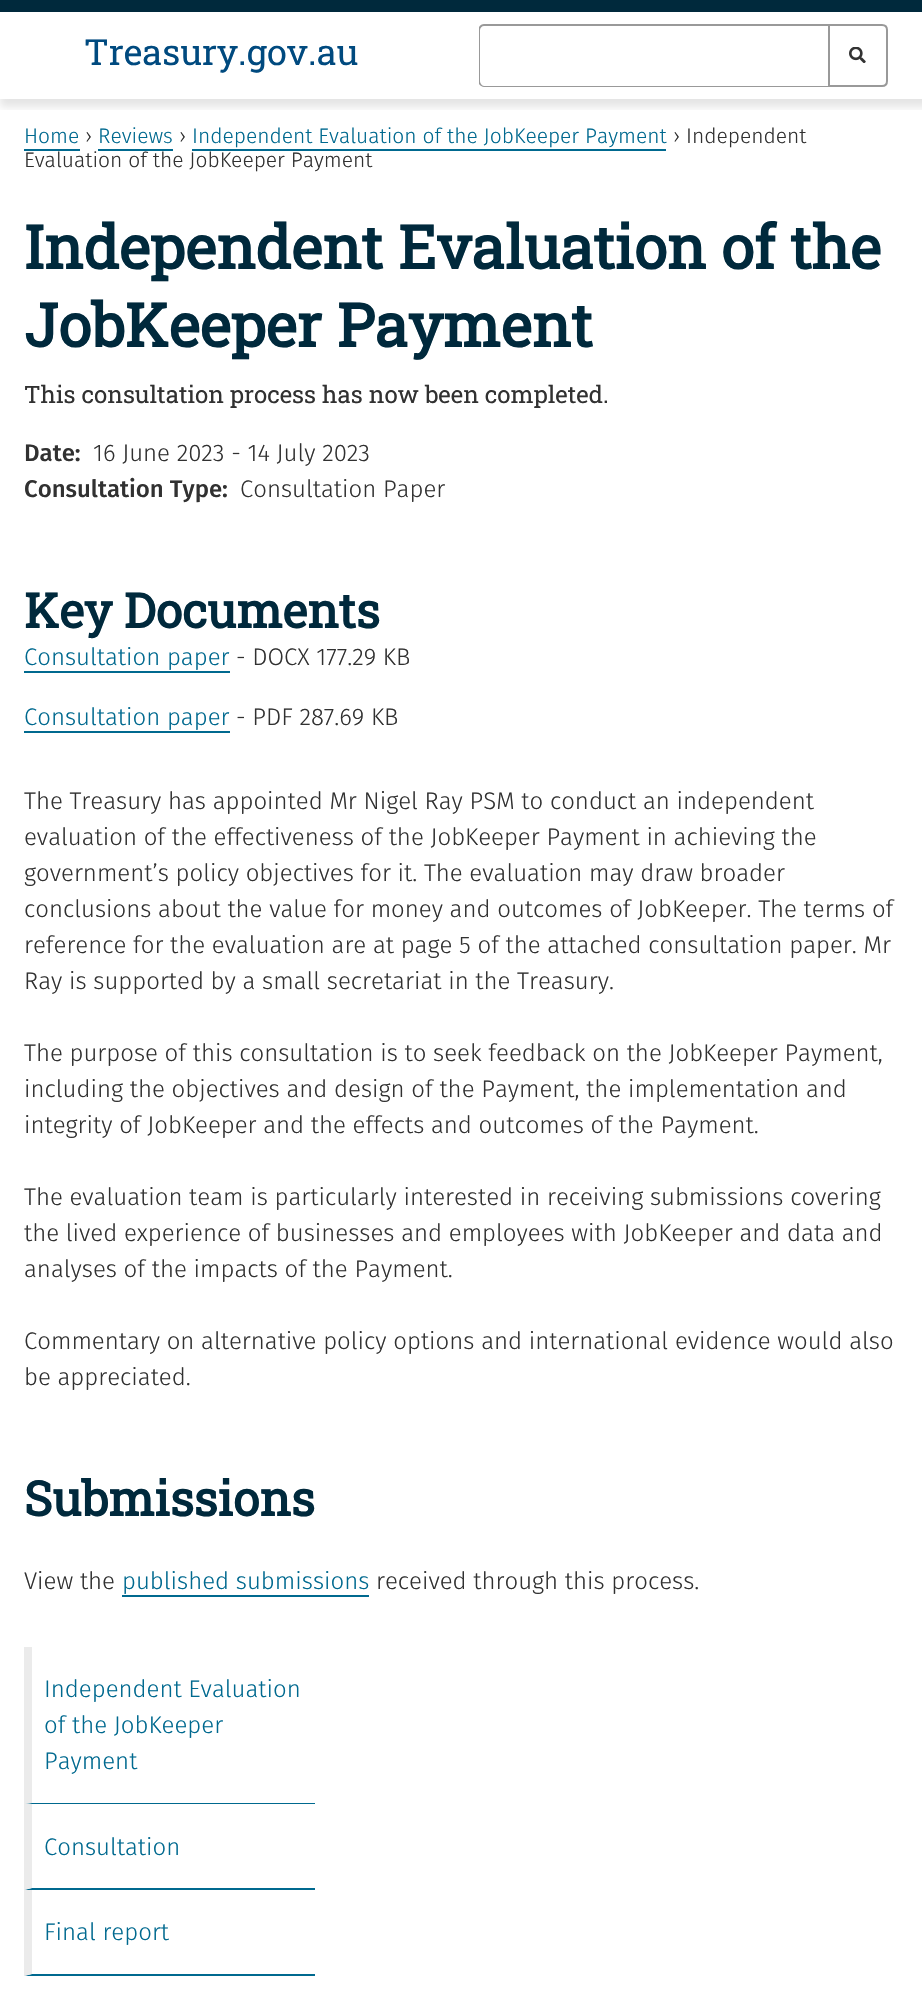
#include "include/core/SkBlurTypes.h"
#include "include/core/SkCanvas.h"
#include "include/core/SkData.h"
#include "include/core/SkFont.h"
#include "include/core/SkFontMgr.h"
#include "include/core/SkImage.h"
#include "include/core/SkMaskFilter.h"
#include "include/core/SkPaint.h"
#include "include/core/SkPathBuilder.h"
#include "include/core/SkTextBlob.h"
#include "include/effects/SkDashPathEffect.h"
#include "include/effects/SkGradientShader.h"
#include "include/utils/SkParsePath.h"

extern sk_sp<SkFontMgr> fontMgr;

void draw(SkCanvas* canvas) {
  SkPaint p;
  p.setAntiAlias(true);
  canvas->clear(SK_ColorWHITE);
  canvas->save();
  canvas->clipRect(SkRect::MakeLTRB(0, 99, 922, 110));
  p.setColor(SkColorSetARGB(26, 0, 0, 0));
  p.setMaskFilter(SkMaskFilter::MakeBlur(kNormal_SkBlurStyle, 4));
  canvas->drawRect(SkRect::MakeLTRB(0, 8, 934, 107), p);
  p.setMaskFilter(nullptr);
  canvas->restore();
  p.setColor(SkColorSetRGB(0, 41, 60));
  canvas->drawRect(SkRect::MakeLTRB(0, 0, 922, 12), p);
  canvas->save();
  canvas->clipRect(SkRect::MakeLTRB(479, 24, 828, 87));
  p.setColor(SkColorSetRGB(153, 153, 153));
  canvas->drawPath(SkPathBuilder(SkPathFillType::kEvenOdd).moveTo(484, 24).lineTo(828, 24).lineTo(828, 87).lineTo(484, 87).cubicTo(481, 87, 478, 84, 478, 81).lineTo(478, 30).cubicTo(478, 27, 481, 24, 484, 24).close().moveTo(484, 26).lineTo(828, 26).lineTo(828, 86).lineTo(484, 86).cubicTo(482, 86, 480, 83, 480, 81).lineTo(480, 30).cubicTo(480, 28, 482, 26, 484, 26).close().detach(), p);
  canvas->restore();
  canvas->drawImageRect(SkImages::DeferredFromEncodedData(SkData::MakeFromFileName("images/1.png")), SkRect::MakeLTRB(849, 47, 866, 63), SkSamplingOptions());
  p.setStyle(SkPaint::kStroke_Style);
  p.setStrokeWidth(2);
  canvas->drawPath(SkPathBuilder().moveTo(829, 25).lineTo(882, 25).cubicTo(885, 25, 887, 27, 887, 30).lineTo(887, 81).cubicTo(887, 84, 885, 86, 882, 86).lineTo(829, 86).close().detach(), p);
  p.setStyle(SkPaint::kFill_Style);
  p.setColor(SkColorSetRGB(0, 105, 143));
  canvas->drawRect(SkRect::MakeLTRB(24, 149, 80, 151), p);
  canvas->drawRect(SkRect::MakeLTRB(98, 149, 173, 151), p);
  canvas->drawRect(SkRect::MakeLTRB(192, 149, 666, 151), p);
  canvas->drawRect(SkRect::MakeLTRB(24, 671, 230, 673), p);
  canvas->drawRect(SkRect::MakeLTRB(24, 731, 230, 733), p);
  canvas->drawRect(SkRect::MakeLTRB(122, 1595, 369, 1597), p);
  canvas->drawPath(SkPathBuilder().moveTo(315, 1804).lineTo(24, 1804).lineTo(32, 1803).lineTo(315, 1803).close().detach(), p);
  p.setColor(SkColorSetRGB(235, 235, 235));
  canvas->drawPath(SkPathBuilder().moveTo(24, 1804).lineTo(24, 1647).lineTo(32, 1647).lineTo(32, 1803).close().detach(), p);
  p.setColor(SkColorSetRGB(0, 105, 143));
  canvas->drawPath(SkPathBuilder().moveTo(315, 1890).lineTo(24, 1890).lineTo(32, 1888).lineTo(315, 1888).close().detach(), p);
  p.setColor(SkColorSetRGB(235, 235, 235));
  canvas->drawPath(SkPathBuilder().moveTo(24, 1890).lineTo(24, 1804).lineTo(32, 1804).lineTo(32, 1888).close().detach(), p);
  p.setColor(SkColorSetRGB(0, 105, 143));
  canvas->drawPath(SkPathBuilder().moveTo(315, 1976).lineTo(24, 1976).lineTo(32, 1974).lineTo(315, 1974).close().detach(), p);
  p.setColor(SkColorSetRGB(235, 235, 235));
  canvas->drawPath(SkPathBuilder().moveTo(24, 1976).lineTo(24, 1890).lineTo(32, 1890).lineTo(32, 1974).close().detach(), p);
  SkFont font1(fontMgr->matchFamilyStyle("Roboto Slab", SkFontStyle::Normal()), 36);
  font1.setSubpixel(true);
  p.setColor(SkColorSetRGB(0, 74, 127));
  canvas->drawString("Treasury.gov.au", 84, 65, font1, p);
  SkFont font2(fontMgr->matchFamilyStyle("Fira Sans", SkFontStyle(300, SkFontStyle::kNormal_Width, SkFontStyle::kUpright_Slant)), 21);
  font2.setSubpixel(true);
  p.setColor(SkColorSetRGB(0, 105, 143));
  canvas->drawString("Home", 24, 143, font2, p);
  p.setColor(SkColorSetRGB(49, 49, 49));
  canvas->drawString("›", 85, 143, font2, p);
  p.setColor(SkColorSetRGB(0, 105, 143));
  canvas->drawString("Reviews", 98, 143, font2, p);
  p.setColor(SkColorSetRGB(49, 49, 49));
  canvas->drawString("›", 179, 143, font2, p);
  p.setColor(SkColorSetRGB(0, 105, 143));
  canvas->drawString("Independent Evaluation of the JobKeeper Payment", 192, 143, font2, p);
  p.setColor(SkColorSetRGB(49, 49, 49));
  canvas->drawString("› Independent", 673, 143, font2, p);
  canvas->drawString("Evaluation of the JobKeeper Payment", 24, 167, font2, p);
  SkFont font3(fontMgr->matchFamilyStyle("Roboto Slab", SkFontStyle::Bold()), 60);
  font3.setSubpixel(true);
  p.setColor(SkColorSetRGB(0, 41, 60));
  canvas->drawString("Independent Evaluation of the", 24, 269, font3, p);
  canvas->drawString("JobKeeper Payment", 24, 347, font3, p);
  SkFont font4(fontMgr->matchFamilyStyle("Roboto Slab", SkFontStyle::Normal()), 24);
  font4.setSubpixel(true);
  p.setColor(SkColorSetRGB(49, 49, 49));
  canvas->drawString("This consultation process has now been completed.", 24, 403, font4, p);
  SkFont font5(fontMgr->matchFamilyStyle("Fira Sans", SkFontStyle(500, SkFontStyle::kNormal_Width, SkFontStyle::kUpright_Slant)), 24);
  font5.setSubpixel(true);
  canvas->drawString("Date:", 24, 461, font5, p);
  SkFont font6(fontMgr->matchFamilyStyle("Fira Sans", SkFontStyle(300, SkFontStyle::kNormal_Width, SkFontStyle::kUpright_Slant)), 24);
  font6.setSubpixel(true);
  canvas->drawString("16 June 2023 - 14 July 2023", 93, 461, font6, p);
  canvas->drawString("Consultation Type:", 24, 497, font5, p);
  canvas->drawString("Consultation Paper", 240, 497, font6, p);
  SkFont font7(fontMgr->matchFamilyStyle("Roboto Slab", SkFontStyle::Bold()), 48);
  font7.setSubpixel(true);
  p.setColor(SkColorSetRGB(0, 41, 60));
  canvas->drawString("Key Documents", 24, 628, font7, p);
  p.setColor(SkColorSetRGB(0, 105, 143));
  canvas->drawString("Consultation paper", 24, 665, font6, p);
  p.setColor(SkColorSetRGB(49, 49, 49));
  canvas->drawString("- DOCX 177.29 KB", 236, 665, font6, p);
  p.setColor(SkColorSetRGB(0, 105, 143));
  canvas->drawString("Consultation paper", 24, 725, font6, p);
  p.setColor(SkColorSetRGB(49, 49, 49));
  canvas->drawString("- PDF 287.69 KB", 236, 725, font6, p);
  canvas->drawString("The Treasury has appointed Mr Nigel Ray PSM to conduct an independent", 24, 809, font6, p);
  canvas->drawString("evaluation of the effectiveness of the JobKeeper Payment in achieving the", 24, 845, font6, p);
  canvas->drawString("government’s policy objectives for it. The evaluation may draw broader", 24, 881, font6, p);
  canvas->drawString("conclusions about the value for money and outcomes of JobKeeper. The terms of", 24, 917, font6, p);
  canvas->drawString("reference for the evaluation are at page 5 of the attached consultation paper. Mr", 24, 953, font6, p);
  canvas->drawString("Ray is supported by a small secretariat in the Treasury.", 24, 989, font6, p);
  canvas->drawString("The purpose of this consultation is to seek feedback on the JobKeeper Payment,", 24, 1061, font6, p);
  canvas->drawString("including the objectives and design of the Payment, the implementation and", 24, 1097, font6, p);
  canvas->drawString("integrity of JobKeeper and the effects and outcomes of the Payment.", 24, 1133, font6, p);
  canvas->drawString("The evaluation team is particularly interested in receiving submissions covering", 24, 1205, font6, p);
  canvas->drawString("the lived experience of businesses and employees with JobKeeper and data and", 24, 1241, font6, p);
  canvas->drawString("analyses of the impacts of the Payment.", 24, 1277, font6, p);
  canvas->drawString("Commentary on alternative policy options and international evidence would also", 24, 1349, font6, p);
  canvas->drawString("be appreciated.", 24, 1385, font6, p);
  p.setColor(SkColorSetRGB(0, 41, 60));
  canvas->drawString("Submissions", 24, 1516, font7, p);
  p.setColor(SkColorSetRGB(49, 49, 49));
  canvas->drawString("View the", 24, 1589, font6, p);
  p.setColor(SkColorSetRGB(0, 105, 143));
  canvas->drawString("published submissions", 122, 1589, font6, p);
  p.setColor(SkColorSetRGB(49, 49, 49));
  canvas->drawString("received through this process.", 376, 1589, font6, p);
  p.setColor(SkColorSetRGB(0, 105, 143));
  canvas->drawString("Independent Evaluation", 44, 1697, font6, p);
  canvas->drawString("of the JobKeeper", 44, 1733, font6, p);
  canvas->drawString("Payment", 44, 1769, font6, p);
  canvas->drawString("Consultation", 44, 1855, font6, p);
  canvas->drawString("Final report", 44, 1940, font6, p);
}
